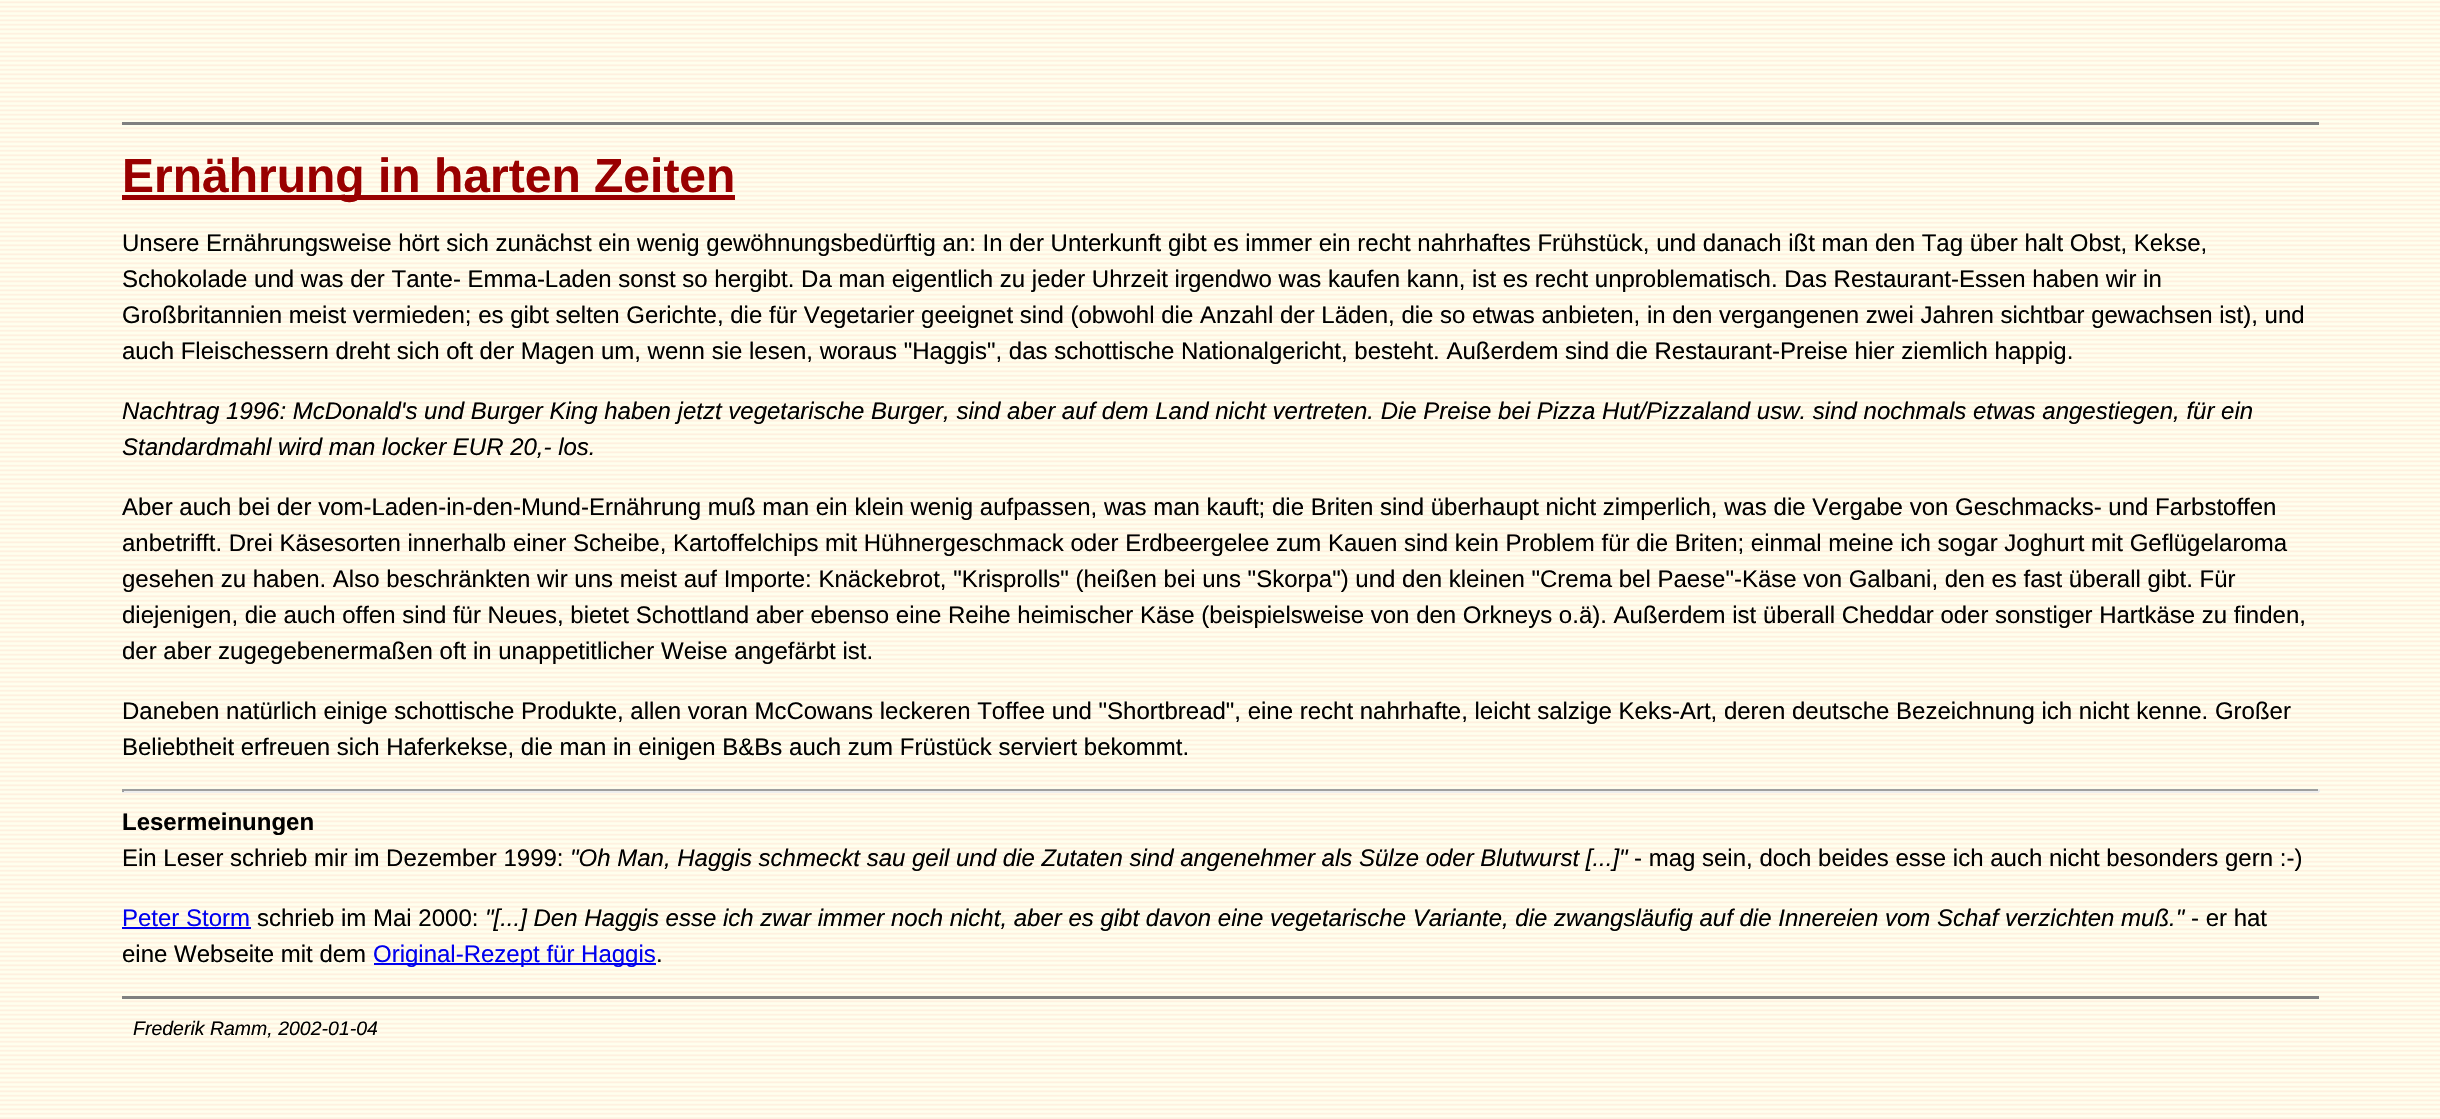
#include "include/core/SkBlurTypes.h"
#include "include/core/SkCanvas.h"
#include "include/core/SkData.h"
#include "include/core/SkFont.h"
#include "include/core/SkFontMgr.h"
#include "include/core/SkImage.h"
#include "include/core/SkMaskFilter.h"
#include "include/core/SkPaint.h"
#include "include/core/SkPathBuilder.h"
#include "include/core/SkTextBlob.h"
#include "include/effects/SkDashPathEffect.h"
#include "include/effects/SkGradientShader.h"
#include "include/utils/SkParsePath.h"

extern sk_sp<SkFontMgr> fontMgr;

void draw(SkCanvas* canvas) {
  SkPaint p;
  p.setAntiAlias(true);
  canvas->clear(SkColorSetRGB(255, 255, 238));
  canvas->drawImageRect(SkImages::DeferredFromEncodedData(SkData::MakeFromFileName("images/1.png")), SkRect::MakeLTRB(0, 1, 2440, 1119), SkSamplingOptions());
  p.setColor(SkColorSetRGB(128, 128, 128));
  canvas->drawRect(SkRect::MakeLTRB(122, 122, 2319, 125), p);
  p.setColor(SkColorSetRGB(153, 0, 0));
  canvas->drawRect(SkRect::MakeLTRB(122, 195, 735, 200), p);
  p.setColor(SkColorSetRGB(159, 159, 159));
  canvas->drawRect(SkRect::MakeLTRB(122, 789, 2319, 791), p);
  p.setColor(SkColorSetRGB(238, 238, 238));
  canvas->drawRect(SkRect::MakeLTRB(2318, 789, 2320, 792), p);
  canvas->drawRect(SkRect::MakeLTRB(122, 791, 2319, 793), p);
  p.setColor(SkColorSetRGB(159, 159, 159));
  canvas->drawRect(SkRect::MakeLTRB(122, 789, 124, 792), p);
  p.setColor(SkColorSetRGB(0, 0, 238));
  canvas->drawRect(SkRect::MakeLTRB(122, 927, 251, 929), p);
  canvas->drawRect(SkRect::MakeLTRB(374, 963, 656, 965), p);
  p.setColor(SkColorSetRGB(128, 128, 128));
  canvas->drawRect(SkRect::MakeLTRB(122, 996, 2319, 999), p);
  SkFont font1(fontMgr->matchFamilyStyle("Liberation Sans", SkFontStyle::Bold()), 48);
  font1.setSubpixel(true);
  p.setColor(SkColorSetRGB(153, 0, 0));
  canvas->drawString("Ernährung in harten Zeiten", 122, 192, font1, p);
  SkFont font2(fontMgr->matchFamilyStyle("Liberation Sans", SkFontStyle::Normal()), 24);
  font2.setSubpixel(true);
  p.setColor(SK_ColorBLACK);
  canvas->drawString("Unsere Ernährungsweise hört sich zunächst ein wenig gewöhnungsbedürftig an: In der Unterkunft gibt es immer ein recht nahrhaftes Frühstück, und danach ißt man den Tag über halt Obst, Kekse,", 122, 251, font2, p);
  canvas->drawString("Schokolade und was der Tante- Emma-Laden sonst so hergibt. Da man eigentlich zu jeder Uhrzeit irgendwo was kaufen kann, ist es recht unproblematisch. Das Restaurant-Essen haben wir in", 122, 287, font2, p);
  canvas->drawString("Großbritannien meist vermieden; es gibt selten Gerichte, die für Vegetarier geeignet sind (obwohl die Anzahl der Läden, die so etwas anbieten, in den vergangenen zwei Jahren sichtbar gewachsen ist), und", 122, 323, font2, p);
  canvas->drawString("auch Fleischessern dreht sich oft der Magen um, wenn sie lesen, woraus \"Haggis\", das schottische Nationalgericht, besteht. Außerdem sind die Restaurant-Preise hier ziemlich happig.", 122, 359, font2, p);
  SkFont font3(fontMgr->matchFamilyStyle("Liberation Sans", SkFontStyle::Italic()), 24);
  font3.setSubpixel(true);
  canvas->drawString("Nachtrag 1996: McDonald's und Burger King haben jetzt vegetarische Burger, sind aber auf dem Land nicht vertreten. Die Preise bei Pizza Hut/Pizzaland usw. sind nochmals etwas angestiegen, für ein", 122, 419, font3, p);
  canvas->drawString("Standardmahl wird man locker EUR 20,- los.", 122, 455, font3, p);
  canvas->drawString("Aber auch bei der vom-Laden-in-den-Mund-Ernährung muß man ein klein wenig aufpassen, was man kauft; die Briten sind überhaupt nicht zimperlich, was die Vergabe von Geschmacks- und Farbstoffen", 122, 515, font2, p);
  canvas->drawString("anbetrifft. Drei Käsesorten innerhalb einer Scheibe, Kartoffelchips mit Hühnergeschmack oder Erdbeergelee zum Kauen sind kein Problem für die Briten; einmal meine ich sogar Joghurt mit Geflügelaroma", 122, 551, font2, p);
  canvas->drawString("gesehen zu haben. Also beschränkten wir uns meist auf Importe: Knäckebrot, \"Krisprolls\" (heißen bei uns \"Skorpa\") und den kleinen \"Crema bel Paese\"-Käse von Galbani, den es fast überall gibt. Für", 122, 587, font2, p);
  canvas->drawString("diejenigen, die auch offen sind für Neues, bietet Schottland aber ebenso eine Reihe heimischer Käse (beispielsweise von den Orkneys o.ä). Außerdem ist überall Cheddar oder sonstiger Hartkäse zu finden,", 122, 623, font2, p);
  canvas->drawString("der aber zugegebenermaßen oft in unappetitlicher Weise angefärbt ist.", 122, 659, font2, p);
  canvas->drawString("Daneben natürlich einige schottische Produkte, allen voran McCowans leckeren Toffee und \"Shortbread\", eine recht nahrhafte, leicht salzige Keks-Art, deren deutsche Bezeichnung ich nicht kenne. Großer", 122, 719, font2, p);
  canvas->drawString("Beliebtheit erfreuen sich Haferkekse, die man in einigen B&Bs auch zum Früstück serviert bekommt.", 122, 755, font2, p);
  SkFont font4(fontMgr->matchFamilyStyle("Liberation Sans", SkFontStyle::Bold()), 24);
  font4.setSubpixel(true);
  canvas->drawString("Lesermeinungen", 122, 830, font4, p);
  canvas->drawString("Ein Leser schrieb mir im Dezember 1999:", 122, 866, font2, p);
  canvas->drawString("\"Oh Man, Haggis schmeckt sau geil und die Zutaten sind angenehmer als Sülze oder Blutwurst [...]\"", 570, 866, font3, p);
  canvas->drawString("- mag sein, doch beides esse ich auch nicht besonders gern :-)", 1634, 866, font2, p);
  p.setColor(SkColorSetRGB(0, 0, 238));
  canvas->drawString("Peter Storm", 122, 926, font2, p);
  p.setColor(SK_ColorBLACK);
  canvas->drawString("schrieb im Mai 2000:", 257, 926, font2, p);
  canvas->drawString("\"[...] Den Haggis esse ich zwar immer noch nicht, aber es gibt davon eine vegetarische Variante, die zwangsläufig auf die Innereien vom Schaf verzichten muß.\"", 485, 926, font3, p);
  canvas->drawString("- er hat", 2191, 926, font2, p);
  canvas->drawString("eine Webseite mit dem", 122, 962, font2, p);
  p.setColor(SkColorSetRGB(0, 0, 238));
  canvas->drawString("Original-Rezept für Haggis", 373, 962, font2, p);
  p.setColor(SK_ColorBLACK);
  canvas->drawString(".", 656, 962, font2, p);
  SkFont font5(fontMgr->matchFamilyStyle("Liberation Sans", SkFontStyle::Italic()), 19.5f);
  font5.setSubpixel(true);
  canvas->drawString("Frederik Ramm, 2002-01-04", 133, 1035, font5, p);
}
